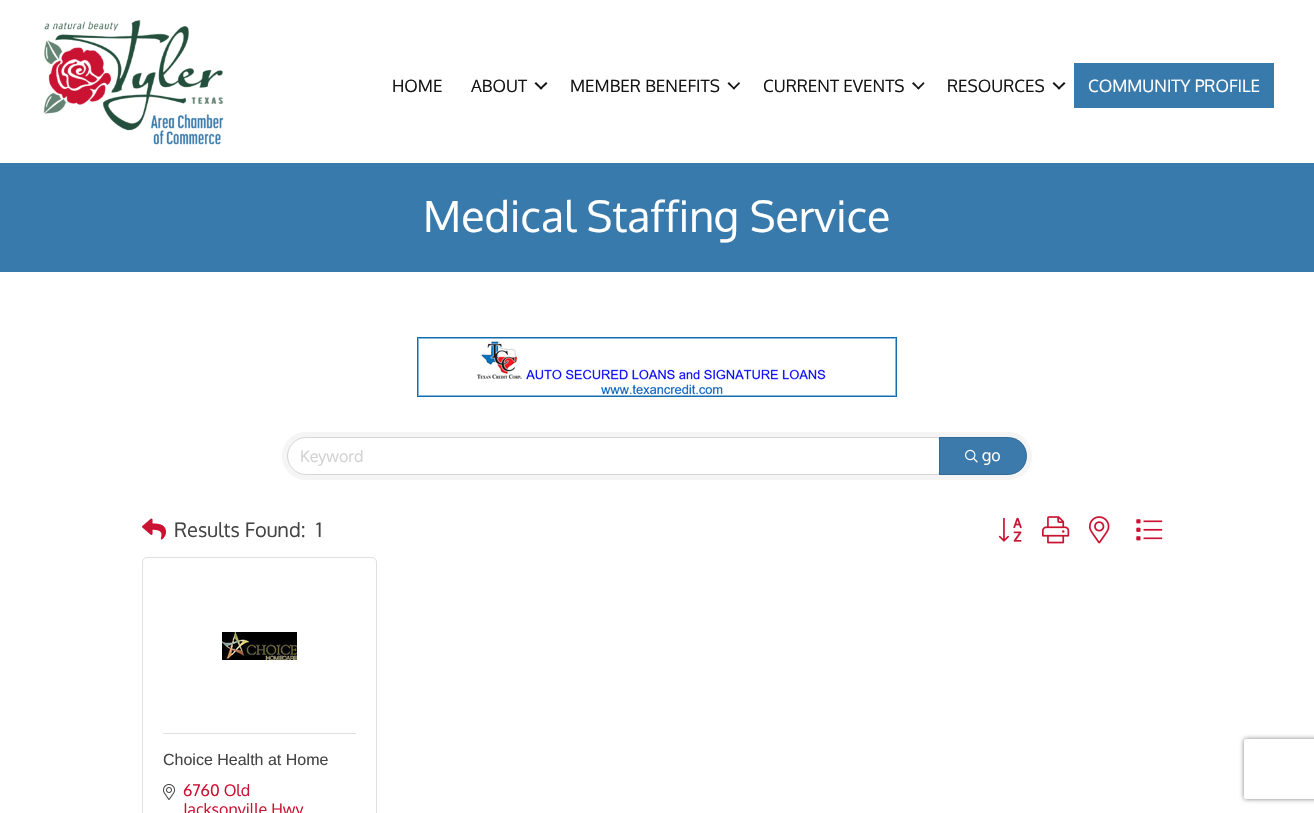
#include "include/core/SkBlurTypes.h"
#include "include/core/SkCanvas.h"
#include "include/core/SkData.h"
#include "include/core/SkFont.h"
#include "include/core/SkFontMgr.h"
#include "include/core/SkImage.h"
#include "include/core/SkMaskFilter.h"
#include "include/core/SkPaint.h"
#include "include/core/SkPathBuilder.h"
#include "include/core/SkTextBlob.h"
#include "include/effects/SkDashPathEffect.h"
#include "include/effects/SkGradientShader.h"
#include "include/utils/SkParsePath.h"

extern sk_sp<SkFontMgr> fontMgr;

void draw(SkCanvas* canvas) {
  SkPaint p;
  p.setAntiAlias(true);
  canvas->clear(SK_ColorWHITE);
  canvas->drawImageRect(SkImages::DeferredFromEncodedData(SkData::MakeFromFileName("images/1.png")), SkRect::MakeLTRB(43, 20, 224, 145), SkSamplingOptions());
  p.setColor(SkColorSetRGB(20, 20, 20));
  canvas->drawPath(SkPathBuilder().moveTo(546, 82).lineTo(547.5f, 83.5f).lineTo(541, 89.5f).lineTo(539.5f, 88.5f).close().detach(), p);
  canvas->drawPath(SkPathBuilder().moveTo(536, 82).lineTo(542.5f, 88.5f).lineTo(541, 89.5f).lineTo(534.5f, 83.5f).close().detach(), p);
  canvas->drawPath(SkPathBuilder().moveTo(739, 82).lineTo(740, 83.5f).lineTo(734, 89.5f).lineTo(732.5f, 88.5f).close().detach(), p);
  canvas->drawPath(SkPathBuilder().moveTo(729, 82).lineTo(735, 88.5f).lineTo(734, 89.5f).lineTo(727.5f, 83.5f).close().detach(), p);
  canvas->drawPath(SkPathBuilder().moveTo(923.5f, 82).lineTo(924.5f, 83.5f).lineTo(918.5f, 89.5f).lineTo(917, 88.5f).close().detach(), p);
  canvas->drawPath(SkPathBuilder().moveTo(913.5f, 82).lineTo(919.5f, 88.5f).lineTo(918.5f, 89.5f).lineTo(912, 83.5f).close().detach(), p);
  canvas->drawPath(SkPathBuilder().moveTo(1064, 82).lineTo(1065.5f, 83.5f).lineTo(1059, 89.5f).lineTo(1057.5f, 88.5f).close().detach(), p);
  canvas->drawPath(SkPathBuilder().moveTo(1054, 82).lineTo(1060.5f, 88.5f).lineTo(1059, 89.5f).lineTo(1052.5f, 83.5f).close().detach(), p);
  p.setColor(SkColorSetRGB(57, 122, 172));
  canvas->drawRect(SkRect::MakeLTRB(1074, 63, 1274, 108), p);
  canvas->drawRect(SkRect::MakeLTRB(0, 163, 1314, 272), p);
  canvas->drawImageRect(SkImages::DeferredFromEncodedData(SkData::MakeFromFileName("images/2.png")), SkRect::MakeLTRB(417, 337, 897, 397), SkSamplingOptions());
  p.setColor(SkColorSetRGB(245, 245, 245));
  canvas->drawRoundRect(SkRect::MakeLTRB(282, 432, 1032, 480), 24, 24, p);
  p.setColor(SK_ColorWHITE);
  canvas->drawPath(SkPathBuilder().moveTo(306, 438).lineTo(937, 438).cubicTo(938, 438, 939, 439, 939, 440).lineTo(939, 472).cubicTo(939, 473, 938, 474, 937, 474).lineTo(306, 474).cubicTo(296, 474, 288, 466, 288, 456).cubicTo(288, 446, 296, 438, 306, 438).close().detach(), p);
  p.setStyle(SkPaint::kStroke_Style);
  p.setStrokeWidth(1);
  p.setColor(SkColorSetARGB(31, 0, 0, 0));
  canvas->drawPath(SkPathBuilder().moveTo(306, 437.5f).lineTo(937, 437.5f).cubicTo(938.5f, 437.5f, 939.5f, 438.5f, 939.5f, 440).lineTo(939.5f, 472).cubicTo(939.5f, 473.5f, 938.5f, 474.5f, 937, 474.5f).lineTo(306, 474.5f).cubicTo(296, 474.5f, 287.5f, 466, 287.5f, 456).cubicTo(287.5f, 446, 296, 437.5f, 306, 437.5f).close().detach(), p);
  p.setStyle(SkPaint::kFill_Style);
  p.setColor(SkColorSetRGB(59, 122, 171));
  canvas->drawPath(SkPathBuilder().moveTo(939, 437).lineTo(1008, 437).cubicTo(1018.5f, 437, 1027, 445.5f, 1027, 456).cubicTo(1027, 466.5f, 1018.5f, 475, 1008, 475).lineTo(939, 475).close().detach(), p);
  p.setStyle(SkPaint::kStroke_Style);
  p.setColor(SkColorSetARGB(31, 0, 0, 0));
  canvas->drawPath(SkPathBuilder().moveTo(939.5f, 437.5f).lineTo(1008, 437.5f).cubicTo(1018, 437.5f, 1026.5f, 446, 1026.5f, 456).cubicTo(1026.5f, 466, 1018, 474.5f, 1008, 474.5f).lineTo(939.5f, 474.5f).close().detach(), p);
  canvas->drawImageRect(SkImages::DeferredFromEncodedData(SkData::MakeFromFileName("images/3.png")), SkRect::MakeLTRB(965, 449, 978, 463), SkSamplingOptions());
  canvas->drawImageRect(SkImages::DeferredFromEncodedData(SkData::MakeFromFileName("images/4.png")), SkRect::MakeLTRB(142, 518, 166, 540), SkSamplingOptions());
  canvas->drawImageRect(SkImages::DeferredFromEncodedData(SkData::MakeFromFileName("images/5.png")), SkRect::MakeLTRB(998, 517, 1022, 542), SkSamplingOptions());
  canvas->drawImageRect(SkImages::DeferredFromEncodedData(SkData::MakeFromFileName("images/6.png")), SkRect::MakeLTRB(1042, 516, 1070, 544), SkSamplingOptions());
  canvas->drawImageRect(SkImages::DeferredFromEncodedData(SkData::MakeFromFileName("images/7.png")), SkRect::MakeLTRB(1089, 516, 1110, 544), SkSamplingOptions());
  canvas->drawImageRect(SkImages::DeferredFromEncodedData(SkData::MakeFromFileName("images/8.png")), SkRect::MakeLTRB(1136, 519, 1163, 541), SkSamplingOptions());
  p.setColor(SkColorSetRGB(223, 223, 223));
  canvas->drawRoundRect(SkRect::MakeLTRB(142.5f, 557.5f, 376.5f, 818.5f), 4.5f, 4.5f, p);
  canvas->drawImageRect(SkImages::DeferredFromEncodedData(SkData::MakeFromFileName("images/9.png")), SkRect::MakeLTRB(222, 632, 297, 660), SkSamplingOptions());
  p.setStyle(SkPaint::kFill_Style);
  canvas->drawRect(SkRect::MakeLTRB(163, 733, 356, 734), p);
  canvas->drawImageRect(SkImages::DeferredFromEncodedData(SkData::MakeFromFileName("images/10.png")), SkRect::MakeLTRB(163, 784, 175, 800), SkSamplingOptions());
  canvas->save();
  canvas->clipPath(SkPathBuilder(SkPathFillType::kEvenOdd).moveTo(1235, 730).lineTo(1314, 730).lineTo(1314, 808).lineTo(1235, 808).close().moveTo(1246, 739).lineTo(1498, 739).cubicTo(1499, 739, 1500, 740, 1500, 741).lineTo(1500, 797).cubicTo(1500, 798, 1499, 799, 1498, 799).lineTo(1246, 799).cubicTo(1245, 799, 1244, 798, 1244, 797).lineTo(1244, 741).cubicTo(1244, 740, 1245, 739, 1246, 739).close().detach(), true);
  p.setColor(SkColorSetRGB(128, 128, 128));
  p.setMaskFilter(SkMaskFilter::MakeBlur(kNormal_SkBlurStyle, 2.5f));
  canvas->drawRoundRect(SkRect::MakeLTRB(1244, 739, 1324, 799), 2, 2, p);
  p.setMaskFilter(nullptr);
  canvas->restore();
  SkFont font1(fontMgr->matchFamilyStyle("Oxygen", SkFontStyle::Normal()), 17);
  font1.setSubpixel(true);
  p.setColor(SkColorSetRGB(20, 20, 20));
  canvas->drawString("HOME", 392, 92, font1, p);
  canvas->drawString("ABOUT", 471, 92, font1, p);
  canvas->drawString("MEMBER BENEFITS", 570, 92, font1, p);
  canvas->drawString("CURRENT EVENTS", 763, 92, font1, p);
  canvas->drawString("RESOURCES", 947, 92, font1, p);
  p.setColor(SK_ColorWHITE);
  canvas->drawString("COMMUNITY PROFILE", 1088, 92, font1, p);
  SkFont font2(fontMgr->matchFamilyStyle("Oxygen", SkFontStyle::Normal()), 43);
  font2.setSubpixel(true);
  canvas->drawString("Medical Staffing Service", 423, 232, font2, p);
  SkFont font3(fontMgr->matchFamilyStyle("Oxygen", SkFontStyle::Normal()), 16);
  font3.setSubpixel(true);
  p.setColor(SkColorSetRGB(210, 210, 210));
  canvas->drawString("Keyword", 300, 462, font3, p);
  p.setColor(SK_ColorWHITE);
  canvas->drawString("go", 982, 461, font3, p);
  SkFont font4(fontMgr->matchFamilyStyle("Oxygen", SkFontStyle::Normal()), 20);
  font4.setSubpixel(true);
  p.setColor(SkColorSetRGB(68, 68, 68));
  canvas->drawString("Results Found:", 174, 537, font4, p);
  canvas->drawString("1", 316, 537, font4, p);
  SkFont font5(fontMgr->matchFamilyStyle("Liberation Sans", SkFontStyle::Normal()), 16);
  font5.setSubpixel(true);
  canvas->drawString("Choice Health at Home", 163, 765, font5, p);
  p.setColor(SkColorSetRGB(202, 19, 51));
  canvas->drawString("6760 Old", 183, 796, font3, p);
  canvas->drawString("Jacksonville Hwy", 183, 815, font3, p);
}
